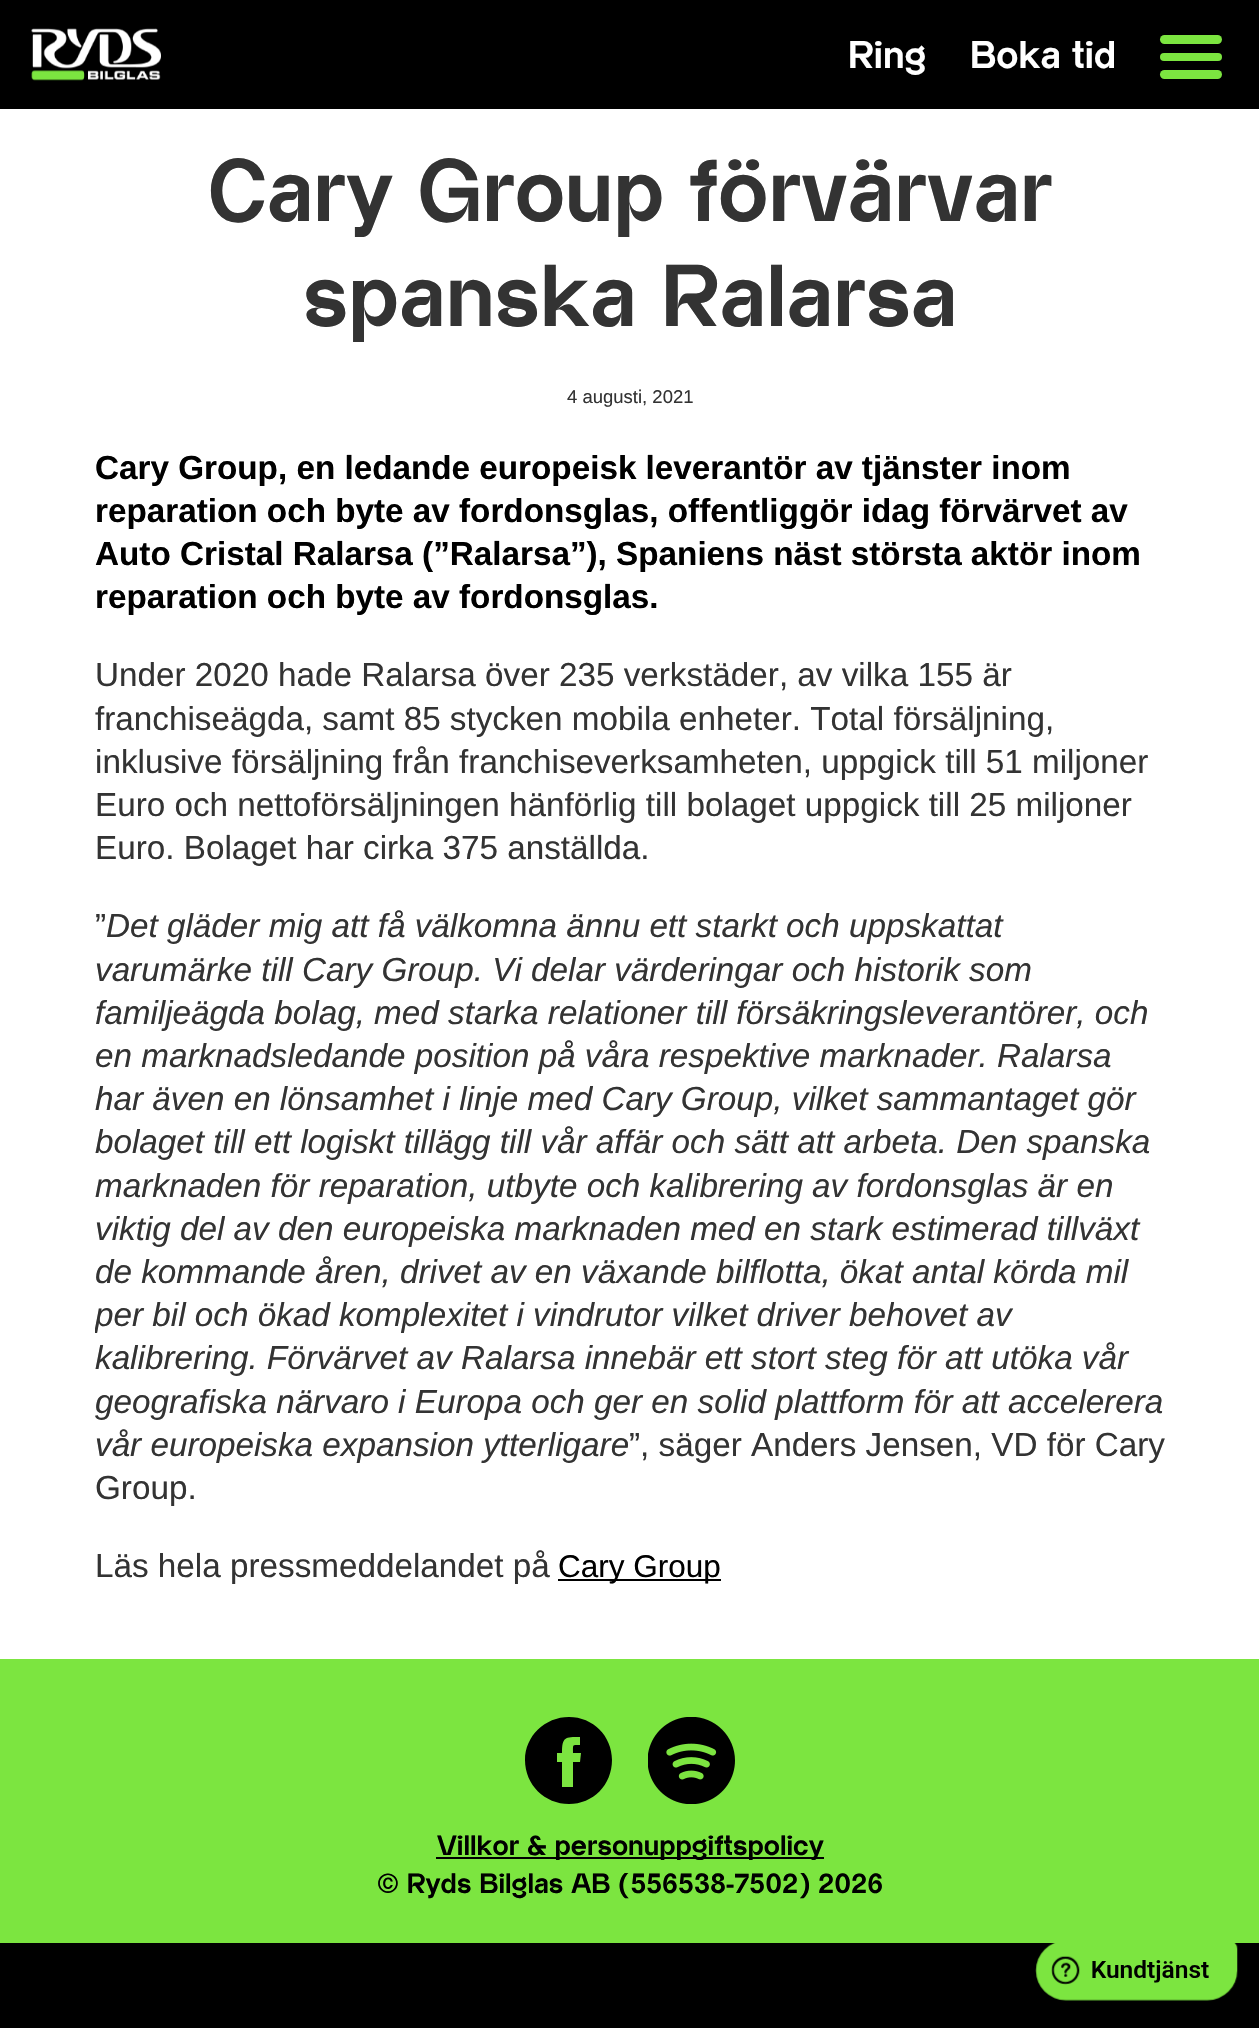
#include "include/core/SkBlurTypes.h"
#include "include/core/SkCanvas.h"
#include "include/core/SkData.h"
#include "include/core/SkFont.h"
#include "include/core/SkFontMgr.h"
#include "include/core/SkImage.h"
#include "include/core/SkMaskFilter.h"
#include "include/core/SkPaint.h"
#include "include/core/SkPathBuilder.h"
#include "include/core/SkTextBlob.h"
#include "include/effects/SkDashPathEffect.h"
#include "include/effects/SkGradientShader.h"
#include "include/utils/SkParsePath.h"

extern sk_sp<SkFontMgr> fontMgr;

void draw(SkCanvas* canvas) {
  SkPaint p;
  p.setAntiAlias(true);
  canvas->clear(SK_ColorBLACK);
  p.setColor(SK_ColorWHITE);
  canvas->drawRect(SkRect::MakeLTRB(0, 109, 1259, 1659), p);
  canvas->drawImageRect(SkImages::DeferredFromEncodedData(SkData::MakeFromFileName("images/1.png")), SkRect::MakeLTRB(31, 28, 161, 81), SkSamplingOptions());
  p.setColor(SkColorSetRGB(124, 229, 64));
  canvas->drawRoundRect(SkRect::MakeLTRB(1160, 53, 1222, 61), 4, 4, p);
  canvas->drawRoundRect(SkRect::MakeLTRB(1160, 35, 1222, 44), 4.5f, 4.5f, p);
  canvas->drawRoundRect(SkRect::MakeLTRB(1160, 70, 1222, 79), 4.5f, 4.5f, p);
  p.setColor(SK_ColorBLACK);
  canvas->drawRect(SkRect::MakeLTRB(558, 1579, 721, 1581), p);
  p.setColor(SkColorSetRGB(124, 229, 64));
  canvas->drawRect(SkRect::MakeLTRB(0, 1659, 1259, 1943), p);
  p.setColor(SK_ColorBLACK);
  canvas->drawPath(SkPathBuilder().moveTo(569, 1717).cubicTo(545, 1717, 525, 1736, 525, 1760).cubicTo(525, 1785, 545, 1804, 569, 1804).cubicTo(593, 1804, 612, 1785, 612, 1760).cubicTo(612, 1736, 593, 1717, 569, 1717).close().moveTo(580, 1762).lineTo(573, 1762).lineTo(573, 1787).lineTo(562, 1787).lineTo(562, 1762).lineTo(557, 1762).lineTo(557, 1753).lineTo(562, 1753).cubicTo(562, 1737, 565, 1737, 580, 1737).lineTo(580, 1745).cubicTo(572, 1745, 573, 1744, 573, 1753).lineTo(581, 1753).close().detach(), p);
  canvas->drawImageRect(SkImages::DeferredFromEncodedData(SkData::MakeFromFileName("images/2.png")), SkRect::MakeLTRB(648, 1717, 735, 1804), SkSamplingOptions());
  canvas->drawRect(SkRect::MakeLTRB(436, 1857, 824, 1859), p);
  canvas->drawImageRect(SkImages::DeferredFromEncodedData(SkData::MakeFromFileName("images/3.png")), SkRect::MakeLTRB(1035, 1943, 1238, 2001), SkSamplingOptions());
  SkFont font1(fontMgr->matchFamilyStyle("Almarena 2", SkFontStyle::Bold()), 38.5f);
  font1.setSubpixel(true);
  p.setColor(SK_ColorWHITE);
  canvas->drawString("Ring", 848, 68, font1, p);
  canvas->drawString("Boka tid", 970, 68, font1, p);
  SkFont font2(fontMgr->matchFamilyStyle("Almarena", SkFontStyle::Bold()), 87.5f);
  font2.setSubpixel(true);
  p.setColor(SkColorSetRGB(51, 51, 51));
  canvas->drawString("Cary Group förvärvar", 208, 221, font2, p);
  canvas->drawString("spanska Ralarsa", 303, 326, font2, p);
  SkFont font3(fontMgr->matchFamilyStyle("Liberation Sans", SkFontStyle::Normal()), 18.5f);
  font3.setSubpixel(true);
  canvas->drawString("4 augusti, 2021", 567, 403, font3, p);
  SkFont font4(fontMgr->matchFamilyStyle("Liberation Sans", SkFontStyle::Bold()), 33.25f);
  font4.setSubpixel(true);
  p.setColor(SK_ColorBLACK);
  canvas->drawString("Cary Group, en ledande europeisk leverantör av tjänster inom", 95, 479, font4, p);
  canvas->drawString("reparation och byte av fordonsglas, offentliggör idag förvärvet av", 95, 522, font4, p);
  canvas->drawString("Auto Cristal Ralarsa (”Ralarsa”), Spaniens näst största aktör inom", 95, 565, font4, p);
  canvas->drawString("reparation och byte av fordonsglas.", 95, 608, font4, p);
  SkFont font5(fontMgr->matchFamilyStyle("Liberation Sans", SkFontStyle::Normal()), 33.25f);
  font5.setSubpixel(true);
  p.setColor(SkColorSetRGB(51, 51, 51));
  canvas->drawString("Under 2020 hade Ralarsa över 235 verkstäder, av vilka 155 är", 95, 686, font5, p);
  canvas->drawString("franchiseägda, samt 85 stycken mobila enheter. Total försäljning,", 95, 730, font5, p);
  canvas->drawString("inklusive försäljning från franchiseverksamheten, uppgick till 51 miljoner", 95, 773, font5, p);
  canvas->drawString("Euro och nettoförsäljningen hänförlig till bolaget uppgick till 25 miljoner", 95, 816, font5, p);
  canvas->drawString("Euro. Bolaget har cirka 375 anställda.", 95, 859, font5, p);
  canvas->drawString("”", 95, 937, font5, p);
  SkFont font6(fontMgr->matchFamilyStyle("Liberation Sans", SkFontStyle::Italic()), 33.25f);
  font6.setSubpixel(true);
  canvas->drawString("Det gläder mig att få välkomna ännu ett starkt och uppskattat", 106, 937, font6, p);
  canvas->drawString("varumärke till Cary Group. Vi delar värderingar och historik som", 95, 981, font6, p);
  canvas->drawString("familjeägda bolag, med starka relationer till försäkringsleverantörer, och", 95, 1024, font6, p);
  canvas->drawString("en marknadsledande position på våra respektive marknader. Ralarsa", 95, 1067, font6, p);
  canvas->drawString("har även en lönsamhet i linje med Cary Group, vilket sammantaget gör", 95, 1110, font6, p);
  canvas->drawString("bolaget till ett logiskt tillägg till vår affär och sätt att arbeta. Den spanska", 95, 1153, font6, p);
  canvas->drawString("marknaden för reparation, utbyte och kalibrering av fordonsglas är en", 95, 1197, font6, p);
  canvas->drawString("viktig del av den europeiska marknaden med en stark estimerad tillväxt", 95, 1240, font6, p);
  canvas->drawString("de kommande åren, drivet av en växande bilflotta, ökat antal körda mil", 95, 1283, font6, p);
  canvas->save();
  canvas->clipRect(SkRect::MakeLTRB(95, 144, 1166, 1624));
  canvas->drawString("per bil och ökad komplexitet i vindrutor vilket driver behovet av", 95, 1326, font6, p);
  canvas->restore();
  canvas->drawString("kalibrering. Förvärvet av Ralarsa innebär ett stort steg för att utöka vår", 95, 1369, font6, p);
  canvas->drawString("geografiska närvaro i Europa och ger en solid plattform för att accelerera", 95, 1413, font6, p);
  canvas->drawString("vår europeiska expansion ytterligare", 95, 1456, font6, p);
  canvas->drawString("”, säger Anders Jensen, VD för Cary", 629, 1456, font5, p);
  canvas->drawString("Group.", 95, 1499, font5, p);
  canvas->drawString("Läs hela pressmeddelandet på", 95, 1577, font5, p);
  SkFont font7(fontMgr->matchFamilyStyle("Liberation Sans", SkFontStyle::Normal()), 31.5f);
  font7.setSubpixel(true);
  p.setColor(SK_ColorBLACK);
  canvas->drawString("Cary Group", 558, 1577, font7, p);
  canvas->save();
  canvas->clipRect(SkRect::MakeLTRB(436, 1834, 824, 1860));
  SkFont font8(fontMgr->matchFamilyStyle("Almarena", SkFontStyle::Bold()), 28);
  font8.setSubpixel(true);
  canvas->drawString("Villkor & personuppgiftspolicy", 437, 1855, font8, p);
  canvas->restore();
  canvas->save();
  canvas->clipRect(SkRect::MakeLTRB(376, 1873, 884, 1899));
  canvas->drawString("© Ryds Bilglas AB (556538-7502) 2026", 377, 1893, font8, p);
  canvas->restore();
}
